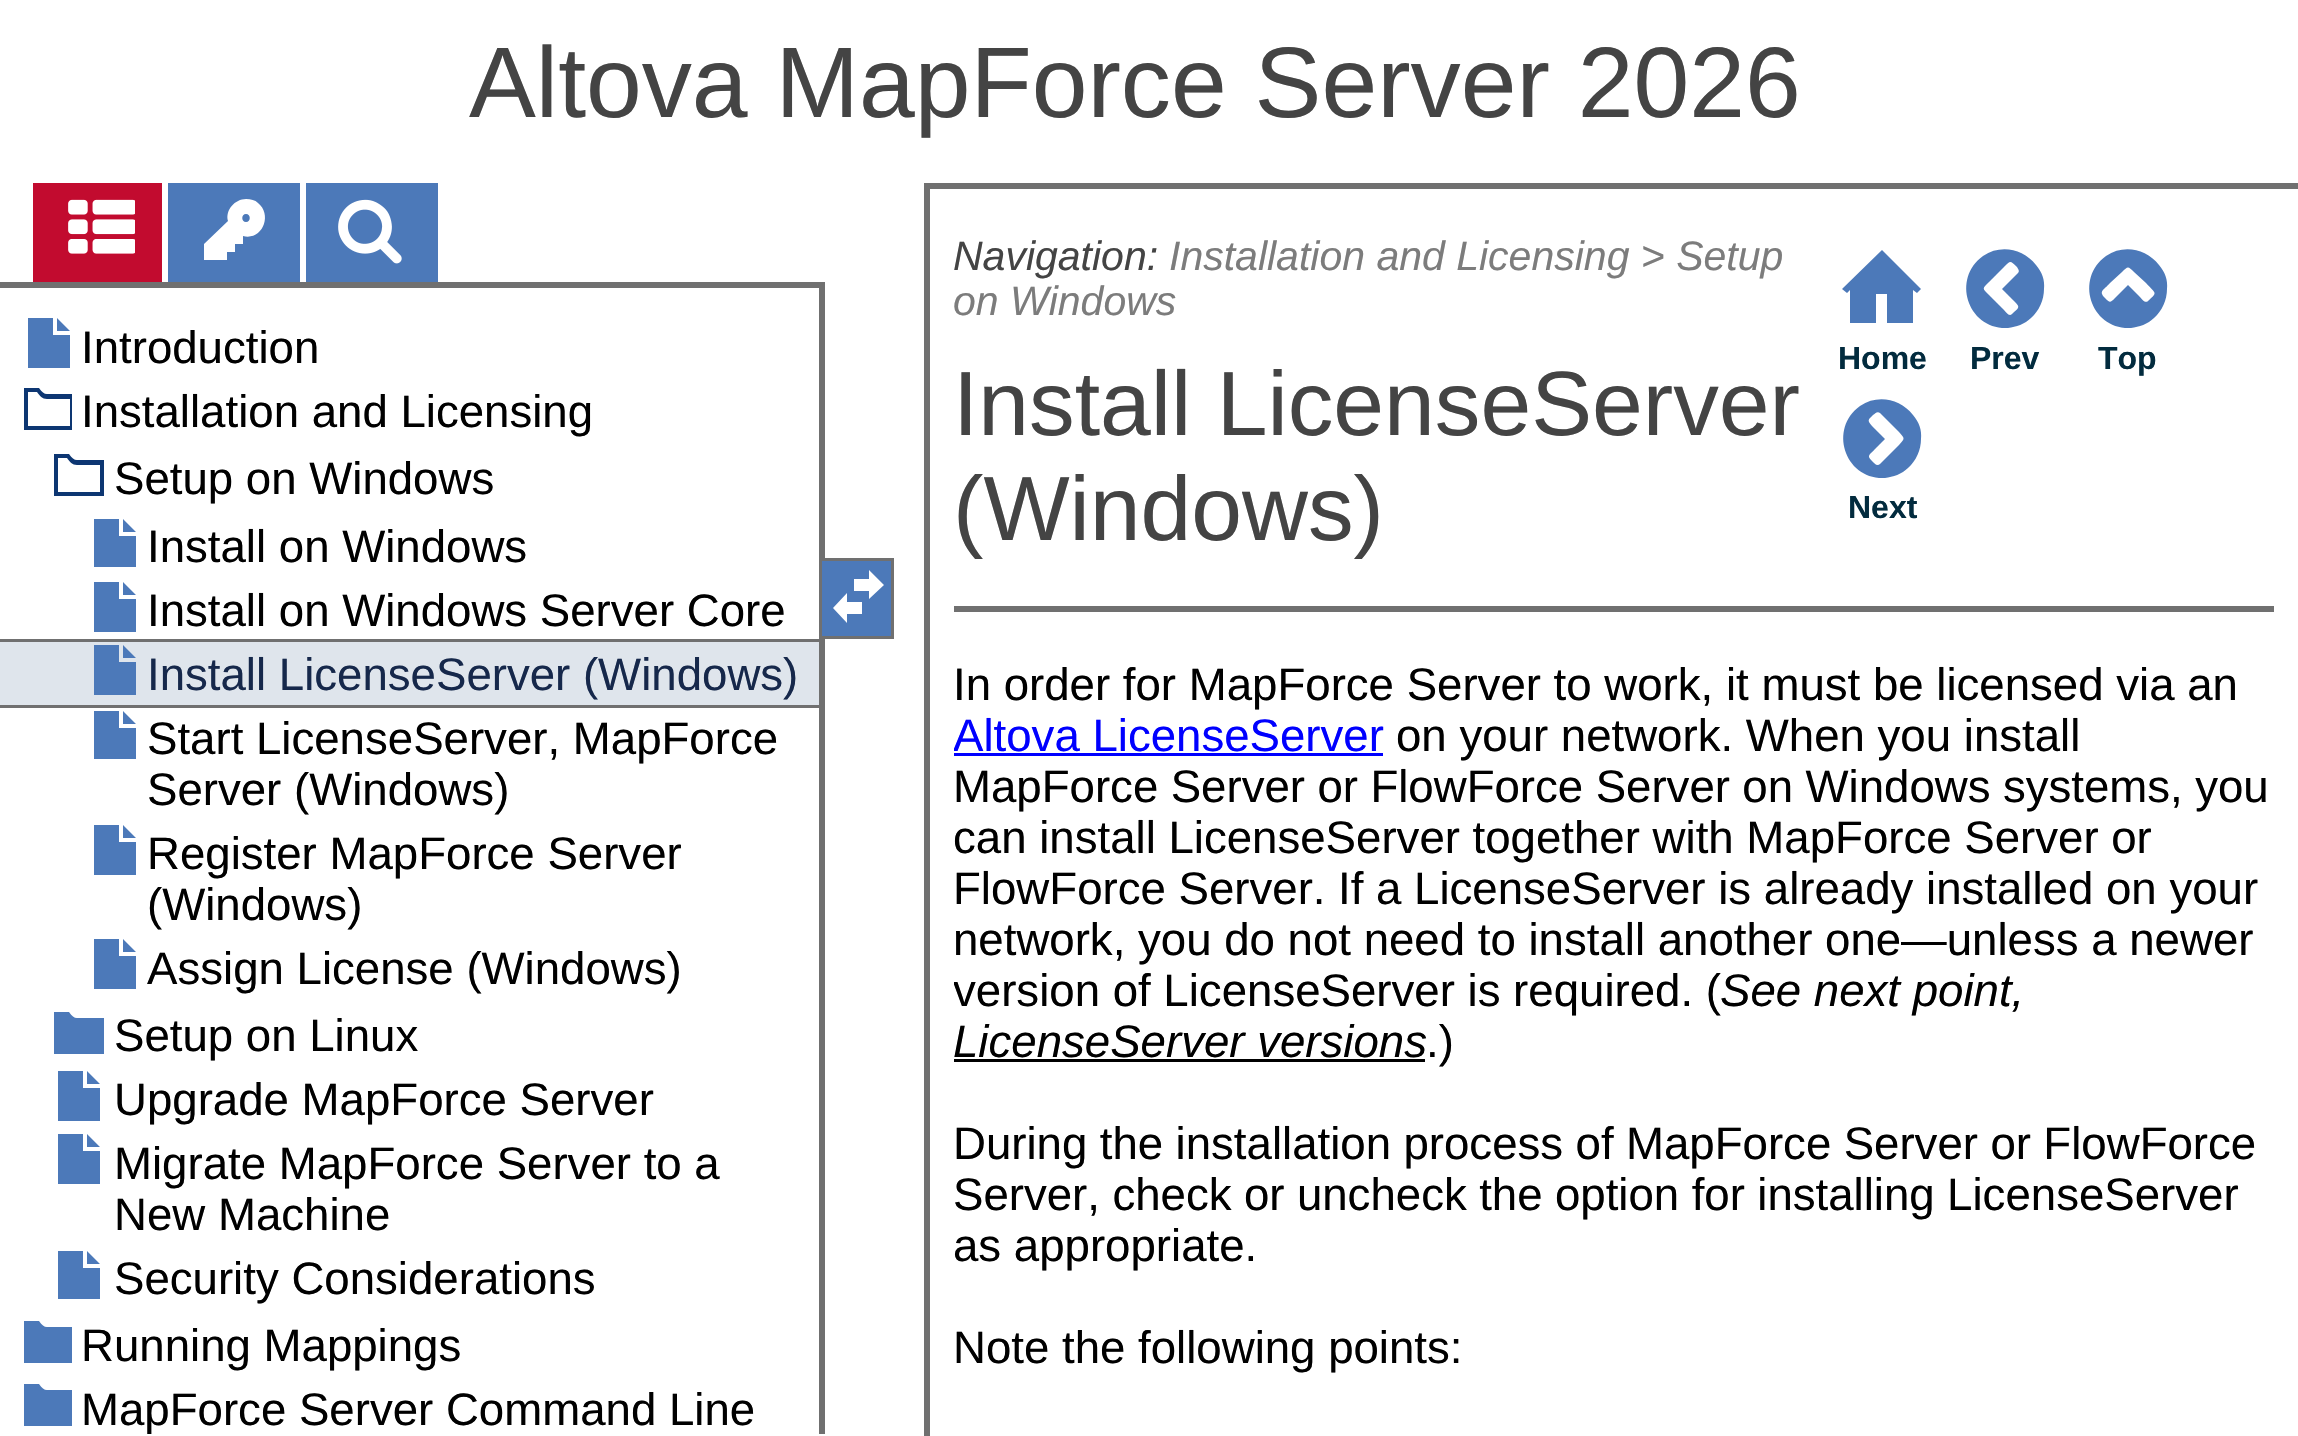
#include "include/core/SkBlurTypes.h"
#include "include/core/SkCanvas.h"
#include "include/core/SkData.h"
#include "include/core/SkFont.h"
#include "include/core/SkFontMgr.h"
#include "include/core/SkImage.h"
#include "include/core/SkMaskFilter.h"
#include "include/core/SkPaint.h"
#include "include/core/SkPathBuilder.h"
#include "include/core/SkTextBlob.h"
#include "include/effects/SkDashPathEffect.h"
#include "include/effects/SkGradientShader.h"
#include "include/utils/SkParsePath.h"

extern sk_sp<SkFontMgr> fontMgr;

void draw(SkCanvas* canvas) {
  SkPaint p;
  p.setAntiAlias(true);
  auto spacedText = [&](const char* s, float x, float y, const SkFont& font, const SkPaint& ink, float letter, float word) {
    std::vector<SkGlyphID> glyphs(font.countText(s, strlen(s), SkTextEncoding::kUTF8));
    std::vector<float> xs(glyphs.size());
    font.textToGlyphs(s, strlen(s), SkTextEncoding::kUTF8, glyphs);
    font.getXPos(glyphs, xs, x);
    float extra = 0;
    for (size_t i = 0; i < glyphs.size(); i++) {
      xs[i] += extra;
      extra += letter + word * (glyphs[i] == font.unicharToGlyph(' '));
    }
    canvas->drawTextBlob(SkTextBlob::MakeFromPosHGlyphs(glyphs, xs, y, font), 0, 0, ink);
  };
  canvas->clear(SK_ColorWHITE);
  p.setColor(SkColorSetRGB(194, 11, 47));
  canvas->drawRect(SkRect::MakeLTRB(33, 183, 162, 282), p);
  p.setColor(SkColorSetRGB(76, 121, 185));
  canvas->drawRect(SkRect::MakeLTRB(168, 183, 300, 282), p);
  canvas->drawRect(SkRect::MakeLTRB(306, 183, 438, 282), p);
  canvas->drawImageRect(SkImages::DeferredFromEncodedData(SkData::MakeFromFileName("images/1.png")), SkRect::MakeLTRB(68, 199, 135, 254), SkSamplingOptions());
  p.setColor(SK_ColorWHITE);
  canvas->drawPath(SkPathBuilder().moveTo(246, 199).cubicTo(251, 199, 255, 200, 258, 203).cubicTo(273, 215, 262, 241, 243, 236).lineTo(243, 244).lineTo(235, 244).lineTo(235, 252).lineTo(227, 252).lineTo(227, 260).lineTo(204, 260).lineTo(204, 244).lineTo(228, 221).cubicTo(225, 210, 235, 199, 246, 199).close().moveTo(246, 222).cubicTo(251, 222, 251, 214, 246, 214).cubicTo(241, 214, 241, 222, 246, 222).close().detach(), p);
  canvas->drawImageRect(SkImages::DeferredFromEncodedData(SkData::MakeFromFileName("images/2.png")), SkRect::MakeLTRB(338, 199, 402, 264), SkSamplingOptions());
  p.setColor(SkColorSetRGB(112, 112, 112));
  canvas->drawRect(SkRect::MakeLTRB(0, 282, 825, 288), p);
  canvas->drawRect(SkRect::MakeLTRB(819, 282, 825, 1434), p);
  p.setColor(SkColorSetRGB(76, 121, 185));
  canvas->drawPath(SkPathBuilder().moveTo(70, 331).lineTo(57, 331).lineTo(57, 318).close().moveTo(53, 335).lineTo(53, 318).lineTo(28, 318).lineTo(28, 368).lineTo(70, 368).lineTo(70, 335).close().detach(), p);
  canvas->save();
  canvas->clipRect(SkRect::MakeLTRB(24, 384, 72, 435));
  p.setColor(SkColorSetRGB(13, 54, 114));
  canvas->drawPath(SkPathBuilder().moveTo(37, 392).cubicTo(40, 396, 42, 399, 47, 399).lineTo(70, 399).lineTo(70, 426).lineTo(28, 426).lineTo(28, 392).close().moveTo(39, 388).lineTo(24, 388).lineTo(24, 430).lineTo(74, 430).lineTo(74, 394).lineTo(47, 394).cubicTo(44, 394, 42, 392, 39, 388).close().detach(), p);
  canvas->restore();
  canvas->drawPath(SkPathBuilder().moveTo(67, 458).cubicTo(70, 462, 72, 465, 77, 465).lineTo(100, 465).lineTo(100, 492).lineTo(58, 492).lineTo(58, 458).close().moveTo(69, 454).lineTo(54, 454).lineTo(54, 496).lineTo(104, 496).lineTo(104, 460).lineTo(77, 460).cubicTo(74, 460, 72, 458, 69, 454).close().detach(), p);
  canvas->save();
  canvas->clipRect(SkRect::MakeLTRB(90, 519, 141, 567));
  p.setColor(SkColorSetRGB(76, 121, 185));
  canvas->drawPath(SkPathBuilder().moveTo(136, 532).lineTo(123, 532).lineTo(123, 519).close().moveTo(119, 536).lineTo(119, 519).lineTo(94, 519).lineTo(94, 569).lineTo(136, 569).lineTo(136, 536).close().detach(), p);
  canvas->restore();
  canvas->drawPath(SkPathBuilder().moveTo(136, 595).lineTo(123, 595).lineTo(123, 582).close().moveTo(119, 599).lineTo(119, 582).lineTo(94, 582).lineTo(94, 632).lineTo(136, 632).lineTo(136, 599).close().detach(), p);
  p.setColor(SkColorSetRGB(223, 229, 236));
  canvas->drawRect(SkRect::MakeLTRB(0, 642, 819, 705), p);
  p.setColor(SkColorSetRGB(76, 121, 185));
  canvas->drawPath(SkPathBuilder().moveTo(136, 658).lineTo(123, 658).lineTo(123, 645).close().moveTo(119, 662).lineTo(119, 645).lineTo(94, 645).lineTo(94, 695).lineTo(136, 695).lineTo(136, 662).close().detach(), p);
  canvas->save();
  canvas->clipRect(SkRect::MakeLTRB(0, 510, 819, 1002));
  p.setStyle(SkPaint::kStroke_Style);
  p.setStrokeWidth(3);
  p.setColor(SkColorSetRGB(112, 112, 112));
  canvas->drawRect(SkRect::MakeLTRB(-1.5f, 640.5f, 820.5f, 706.5f), p);
  canvas->restore();
  canvas->save();
  canvas->clipRect(SkRect::MakeLTRB(90, 711, 141, 759));
  p.setStyle(SkPaint::kFill_Style);
  p.setColor(SkColorSetRGB(76, 121, 185));
  canvas->drawPath(SkPathBuilder().moveTo(136, 724).lineTo(123, 724).lineTo(123, 711).close().moveTo(119, 728).lineTo(119, 711).lineTo(94, 711).lineTo(94, 761).lineTo(136, 761).lineTo(136, 728).close().detach(), p);
  canvas->restore();
  canvas->drawPath(SkPathBuilder().moveTo(136, 838).lineTo(123, 838).lineTo(123, 825).close().moveTo(119, 842).lineTo(119, 825).lineTo(94, 825).lineTo(94, 875).lineTo(136, 875).lineTo(136, 842).close().detach(), p);
  canvas->drawPath(SkPathBuilder().moveTo(136, 952).lineTo(123, 952).lineTo(123, 939).close().moveTo(119, 956).lineTo(119, 939).lineTo(94, 939).lineTo(94, 989).lineTo(136, 989).lineTo(136, 956).close().detach(), p);
  canvas->drawPath(SkPathBuilder().moveTo(77, 1018).cubicTo(74, 1018, 72, 1016, 69, 1012).lineTo(54, 1012).lineTo(54, 1054).lineTo(104, 1054).lineTo(104, 1018).close().detach(), p);
  canvas->drawPath(SkPathBuilder().moveTo(100, 1084).lineTo(87, 1084).lineTo(87, 1071).close().moveTo(83, 1088).lineTo(83, 1071).lineTo(58, 1071).lineTo(58, 1121).lineTo(100, 1121).lineTo(100, 1088).close().detach(), p);
  canvas->drawPath(SkPathBuilder().moveTo(100, 1147).lineTo(87, 1147).lineTo(87, 1134).close().moveTo(83, 1151).lineTo(83, 1134).lineTo(58, 1134).lineTo(58, 1184).lineTo(100, 1184).lineTo(100, 1151).close().detach(), p);
  canvas->save();
  canvas->clipRect(SkRect::MakeLTRB(54, 1251, 105, 1299));
  canvas->drawPath(SkPathBuilder().moveTo(100, 1264).lineTo(87, 1264).lineTo(87, 1251).close().moveTo(83, 1268).lineTo(83, 1251).lineTo(58, 1251).lineTo(58, 1301).lineTo(100, 1301).lineTo(100, 1268).close().detach(), p);
  canvas->restore();
  canvas->save();
  canvas->clipRect(SkRect::MakeLTRB(24, 1317, 72, 1368));
  canvas->drawPath(SkPathBuilder().moveTo(47, 1327).cubicTo(44, 1327, 42, 1325, 39, 1321).lineTo(24, 1321).lineTo(24, 1363).lineTo(74, 1363).lineTo(74, 1327).close().detach(), p);
  canvas->restore();
  canvas->save();
  canvas->clipRect(SkRect::MakeLTRB(24, 1380, 72, 1431));
  canvas->drawPath(SkPathBuilder().moveTo(47, 1390).cubicTo(44, 1390, 42, 1388, 39, 1384).lineTo(24, 1384).lineTo(24, 1426).lineTo(74, 1426).lineTo(74, 1390).close().detach(), p);
  canvas->restore();
  canvas->drawRect(SkRect::MakeLTRB(822, 561, 891, 636), p);
  p.setColor(SkColorSetRGB(112, 112, 112));
  canvas->drawRect(SkRect::MakeLTRB(822, 558, 894, 561), p);
  canvas->drawRect(SkRect::MakeLTRB(891, 558, 894, 639), p);
  canvas->drawRect(SkRect::MakeLTRB(822, 636, 894, 639), p);
  p.setColor(SK_ColorWHITE);
  canvas->drawPath(SkPathBuilder().moveTo(869, 599).lineTo(869, 591).lineTo(854, 591).lineTo(854, 579).lineTo(869, 579).lineTo(869, 570).lineTo(884, 585).close().moveTo(833, 608).lineTo(847, 623).lineTo(847, 614).lineTo(862, 614).lineTo(862, 602).lineTo(847, 602).lineTo(847, 593).close().detach(), p);
  p.setColor(SkColorSetRGB(112, 112, 112));
  canvas->drawRect(SkRect::MakeLTRB(924, 183, 2298, 189), p);
  canvas->drawRect(SkRect::MakeLTRB(924, 183, 930, 1436), p);
  p.setColor(SkColorSetRGB(76, 121, 185));
  canvas->drawPath(SkPathBuilder().moveTo(1882, 250).lineTo(1842, 289).lineTo(1847, 293).lineTo(1850, 290).lineTo(1850, 323).lineTo(1876, 323).lineTo(1876, 294).lineTo(1887, 294).lineTo(1887, 323).lineTo(1913, 323).lineTo(1913, 290).lineTo(1917, 293).lineTo(1921, 289).lineTo(1884, 252).close().detach(), p);
  canvas->drawPath(SkPathBuilder().moveTo(2012, 314).cubicTo(2018, 308, 2021, 308, 2015, 302).lineTo(2002, 289).lineTo(2018, 273).cubicTo(2020, 271, 2018, 269, 2017, 267).cubicTo(2010, 261, 2011, 260, 2004, 267).lineTo(1989, 282).cubicTo(1982, 289, 1982, 288, 1989, 295).lineTo(2004, 310).cubicTo(2006, 312, 2009, 317, 2012, 314).close().moveTo(2044, 289).cubicTo(2044, 300, 2039, 311, 2031, 318).cubicTo(2025, 324, 2016, 327, 2008, 328).cubicTo(1968, 330, 1951, 279, 1983, 256).cubicTo(2001, 244, 2023, 249, 2036, 265).cubicTo(2042, 272, 2045, 280, 2044, 289).close().detach(), p);
  canvas->drawPath(SkPathBuilder().moveTo(2148, 301).cubicTo(2158, 292, 2156, 294, 2146, 283).lineTo(2134, 272).cubicTo(2128, 266, 2128, 266, 2122, 272).lineTo(2110, 283).cubicTo(2104, 290, 2098, 291, 2105, 298).cubicTo(2110, 303, 2110, 303, 2115, 298).lineTo(2128, 285).lineTo(2139, 296).cubicTo(2141, 298, 2145, 304, 2148, 301).close().moveTo(2167, 289).cubicTo(2167, 300, 2162, 311, 2154, 318).cubicTo(2148, 324, 2139, 327, 2131, 328).cubicTo(2091, 330, 2074, 279, 2106, 256).cubicTo(2124, 244, 2146, 249, 2159, 265).cubicTo(2165, 272, 2168, 280, 2167, 289).close().detach(), p);
  canvas->drawPath(SkPathBuilder().moveTo(1880, 464).lineTo(1899, 445).cubicTo(1905, 438, 1905, 439, 1899, 432).lineTo(1880, 413).cubicTo(1877, 411, 1875, 414, 1873, 415).cubicTo(1868, 420, 1867, 420, 1872, 426).lineTo(1885, 439).lineTo(1875, 449).cubicTo(1870, 455, 1866, 455, 1872, 461).cubicTo(1874, 463, 1877, 467, 1880, 464).close().moveTo(1921, 439).cubicTo(1921, 450, 1916, 461, 1908, 468).cubicTo(1902, 474, 1893, 477, 1885, 478).cubicTo(1845, 480, 1828, 429, 1860, 406).cubicTo(1878, 394, 1900, 399, 1913, 415).cubicTo(1919, 422, 1922, 430, 1921, 439).close().detach(), p);
  p.setColor(SkColorSetRGB(112, 112, 112));
  canvas->drawRect(SkRect::MakeLTRB(954, 606, 2274, 612), p);
  p.setColor(SkColorSetRGB(0, 0, 255));
  canvas->drawRect(SkRect::MakeLTRB(954, 753, 1383, 756), p);
  p.setColor(SK_ColorBLACK);
  canvas->drawRect(SkRect::MakeLTRB(954, 1059, 1425, 1062), p);
  SkFont font1(fontMgr->matchFamilyStyle("Liberation Sans", SkFontStyle::Normal()), 100.25f);
  font1.setSubpixel(true);
  p.setColor(SkColorSetRGB(68, 68, 68));
  canvas->drawString("Altova MapForce Server 2026", 469, 117, font1, p);
  SkFont font2(fontMgr->matchFamilyStyle("Liberation Sans", SkFontStyle::Normal()), 45.6f);
  font2.setSubpixel(true);
  p.setColor(SK_ColorBLACK);
  canvas->drawString("Introduction", 81, 363, font2, p);
  canvas->drawString("Installation and Licensing", 81, 427, font2, p);
  canvas->drawString("Setup on Windows", 114, 494, font2, p);
  canvas->drawString("Install on Windows", 147, 562, font2, p);
  canvas->drawString("Install on Windows Server Core", 147, 626, font2, p);
  p.setColor(SkColorSetRGB(22, 40, 75));
  canvas->drawString("Install LicenseServer (Windows)", 147, 690, font2, p);
  p.setColor(SK_ColorBLACK);
  canvas->drawString("Start LicenseServer, MapForce", 147, 754, font2, p);
  canvas->drawString("Server (Windows)", 147, 805, font2, p);
  canvas->drawString("Register MapForce Server", 147, 869, font2, p);
  canvas->drawString("(Windows)", 147, 920, font2, p);
  canvas->drawString("Assign License (Windows)", 147, 984, font2, p);
  canvas->drawString("Setup on Linux", 114, 1051, font2, p);
  canvas->drawString("Upgrade MapForce Server", 114, 1115, font2, p);
  canvas->drawString("Migrate MapForce Server to a", 114, 1179, font2, p);
  canvas->drawString("New Machine", 114, 1230, font2, p);
  canvas->drawString("Security Considerations", 114, 1294, font2, p);
  canvas->drawString("Running Mappings", 81, 1361, font2, p);
  canvas->save();
  canvas->clipRect(SkRect::MakeLTRB(0, 288, 819, 1434));
  canvas->drawString("MapForce Server Command Line", 81, 1425, font2, p);
  canvas->restore();
  SkFont font3(fontMgr->matchFamilyStyle("Liberation Sans", SkFontStyle::Italic()), 41);
  font3.setSubpixel(true);
  p.setColor(SkColorSetRGB(68, 68, 68));
  canvas->drawString("Navigation:", 953, 270, font3, p);
  p.setColor(SkColorSetRGB(124, 124, 124));
  canvas->drawString("Installation and Licensing > Setup", 1169, 270, font3, p);
  canvas->drawString("on Windows", 953, 315, font3, p);
  SkFont font4(fontMgr->matchFamilyStyle("Liberation Sans", SkFontStyle::Normal()), 91.25f);
  font4.setSubpixel(true);
  p.setColor(SkColorSetRGB(68, 68, 68));
  canvas->drawString("Install LicenseServer", 953, 435, font4, p);
  canvas->drawString("(Windows)", 953, 540, font4, p);
  SkFont font5(fontMgr->matchFamilyStyle("Liberation Sans", SkFontStyle::Bold()), 32);
  font5.setSubpixel(true);
  p.setColor(SkColorSetRGB(2, 43, 62));
  canvas->drawString("Home", 1838, 369, font5, p);
  canvas->drawString("Prev", 1970, 369, font5, p);
  canvas->drawString("Top", 2098, 369, font5, p);
  canvas->drawString("Next", 1848, 518, font5, p);
  p.setColor(SK_ColorBLACK);
  canvas->drawString("In order for MapForce Server to work, it must be licensed via an", 953, 700, font2, p);
  canvas->save();
  canvas->clipRect(SkRect::MakeLTRB(954, 612, 2274, 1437));
  p.setColor(SkColorSetRGB(0, 0, 255));
  canvas->drawString("Altova LicenseServer", 953, 751, font2, p);
  canvas->restore();
  p.setColor(SK_ColorBLACK);
  canvas->drawString("on your network. When you install", 1396, 751, font2, p);
  spacedText("MapForce Server or FlowForce Server on Windows systems, you", 953, 802, font2, p, 0, -0.25f);
  canvas->drawString("can install LicenseServer together with MapForce Server or", 953, 853, font2, p);
  canvas->drawString("FlowForce Server.", 953, 904, font2, p);
  canvas->drawString("If a LicenseServer is already installed on your", 1338, 904, font2, p);
  canvas->drawString("network, you do not need to install another one—unless a newer", 953, 955, font2, p);
  canvas->save();
  canvas->clipRect(SkRect::MakeLTRB(954, 612, 2274, 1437));
  canvas->drawString("version of LicenseServer is required. (", 953, 1006, font2, p);
  canvas->restore();
  SkFont font6(fontMgr->matchFamilyStyle("Liberation Sans", SkFontStyle::Italic()), 45.6f);
  font6.setSubpixel(true);
  canvas->drawString("See next point,", 1720, 1006, font6, p);
  canvas->drawString("LicenseServer versions", 953, 1057, font6, p);
  canvas->drawString(".)", 1426, 1057, font2, p);
  spacedText("During the installation process of MapForce Server or FlowForce", 953, 1159, font2, p, 0, -0.25f);
  spacedText("Server, check or uncheck the option for installing LicenseServer", 953, 1210, font2, p, 0, -0.25f);
  canvas->drawString("as appropriate.", 953, 1261, font2, p);
  canvas->drawString("Note the following points:", 953, 1363, font2, p);
}
